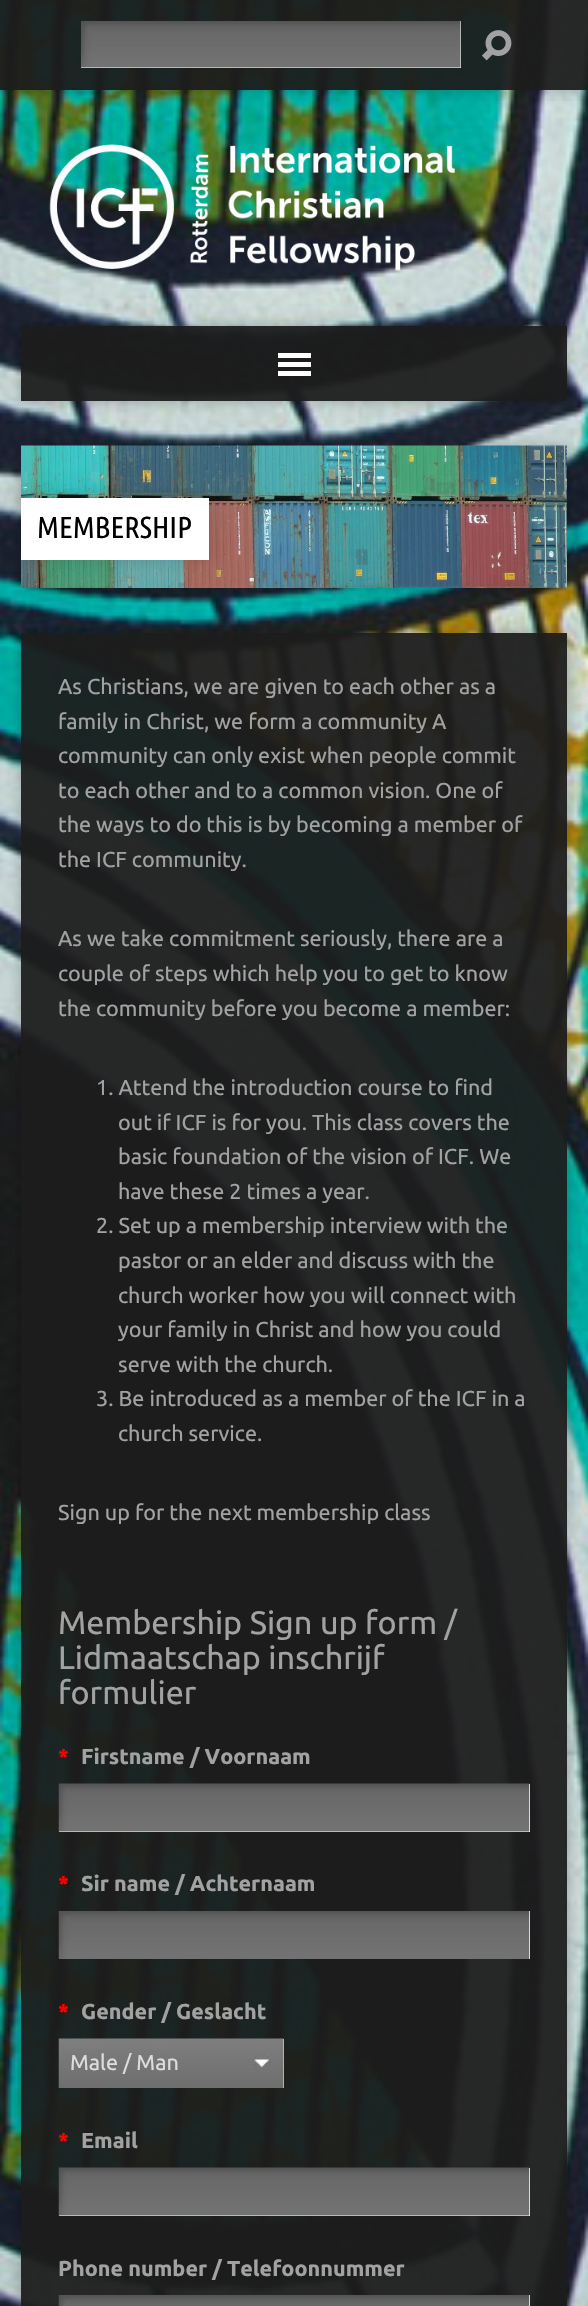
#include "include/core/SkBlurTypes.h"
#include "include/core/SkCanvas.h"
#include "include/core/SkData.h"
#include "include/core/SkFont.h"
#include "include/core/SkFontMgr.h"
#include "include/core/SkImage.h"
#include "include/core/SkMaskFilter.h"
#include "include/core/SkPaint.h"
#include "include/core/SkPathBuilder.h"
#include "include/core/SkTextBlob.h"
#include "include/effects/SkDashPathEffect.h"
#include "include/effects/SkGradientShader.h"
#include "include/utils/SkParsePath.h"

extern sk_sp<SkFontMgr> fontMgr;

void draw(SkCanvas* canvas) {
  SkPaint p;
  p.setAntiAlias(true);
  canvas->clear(SK_ColorWHITE);
  canvas->drawImageRect(SkImages::DeferredFromEncodedData(SkData::MakeFromFileName("images/1.png")), SkRect::MakeLTRB(0, 0, 588, 2306), SkSamplingOptions());
  canvas->save();
  canvas->clipRect(SkRect::MakeLTRB(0, 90, 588, 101));
  p.setColor(SkColorSetARGB(64, 0, 0, 0));
  p.setMaskFilter(SkMaskFilter::MakeBlur(kNormal_SkBlurStyle, 7.5f));
  canvas->drawRect(SkRect::MakeLTRB(0, 0, 588, 90), p);
  p.setMaskFilter(nullptr);
  canvas->restore();
  p.setColor(SkColorSetARGB(240, 28, 28, 28));
  canvas->drawRect(SkRect::MakeLTRB(0, 0, 588, 90), p);
  p.setColor(SK_ColorWHITE);
  canvas->drawRect(SkRect::MakeLTRB(81, 21, 461, 68), p);
  canvas->drawImageRect(SkImages::DeferredFromEncodedData(SkData::MakeFromFileName("images/2.png")), SkRect::MakeLTRB(81, 21, 461, 68), SkSamplingOptions());
  canvas->drawImageRect(SkImages::DeferredFromEncodedData(SkData::MakeFromFileName("images/3.png")), SkRect::MakeLTRB(482, 30, 512, 61), SkSamplingOptions());
  canvas->drawImageRect(SkImages::DeferredFromEncodedData(SkData::MakeFromFileName("images/4.png")), SkRect::MakeLTRB(49, 144, 540, 271), SkSamplingOptions());
  canvas->save();
  canvas->clipPath(SkPathBuilder(SkPathFillType::kEvenOdd).moveTo(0, 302).lineTo(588, 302).lineTo(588, 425).lineTo(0, 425).close().moveTo(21, 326).lineTo(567, 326).lineTo(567, 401).lineTo(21, 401).close().detach(), true);
  p.setColor(SkColorSetARGB(64, 0, 0, 0));
  p.setMaskFilter(SkMaskFilter::MakeBlur(kNormal_SkBlurStyle, 7.5f));
  canvas->drawRect(SkRect::MakeLTRB(21, 326, 567, 401), p);
  p.setMaskFilter(nullptr);
  canvas->restore();
  p.setColor(SkColorSetARGB(240, 28, 28, 28));
  canvas->drawRect(SkRect::MakeLTRB(21, 326, 567, 401), p);
  p.setColor(SK_ColorWHITE);
  canvas->drawRect(SkRect::MakeLTRB(278, 353, 311, 358), p);
  canvas->drawRect(SkRect::MakeLTRB(278, 362, 311, 367), p);
  canvas->drawRect(SkRect::MakeLTRB(278, 371, 311, 376), p);
  p.setColor(SkColorSetARGB(64, 0, 0, 0));
  p.setMaskFilter(SkMaskFilter::MakeBlur(kNormal_SkBlurStyle, 7.5f));
  canvas->drawRect(SkRect::MakeLTRB(21, 446, 567, 588), p);
  p.setMaskFilter(nullptr);
  canvas->drawImageRect(SkImages::DeferredFromEncodedData(SkData::MakeFromFileName("images/5.png")), SkRect::MakeLTRB(21, 445, 567, 588), SkSamplingOptions());
  p.setColor(SkColorSetARGB(38, 0, 0, 0));
  p.setMaskFilter(SkMaskFilter::MakeBlur(kNormal_SkBlurStyle, 10.5f));
  canvas->drawRect(SkRect::MakeLTRB(21, 498, 209, 560), p);
  p.setMaskFilter(nullptr);
  p.setColor(SK_ColorWHITE);
  canvas->drawRect(SkRect::MakeLTRB(21, 498, 209, 560), p);
  canvas->save();
  canvas->clipPath(SkPathBuilder(SkPathFillType::kEvenOdd).moveTo(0, 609).lineTo(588, 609).lineTo(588, 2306).lineTo(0, 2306).close().moveTo(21, 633).lineTo(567, 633).lineTo(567, 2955).lineTo(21, 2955).close().detach(), true);
  p.setColor(SkColorSetARGB(64, 0, 0, 0));
  p.setMaskFilter(SkMaskFilter::MakeBlur(kNormal_SkBlurStyle, 7.5f));
  canvas->drawRect(SkRect::MakeLTRB(21, 633, 567, 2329), p);
  p.setMaskFilter(nullptr);
  canvas->restore();
  p.setColor(SkColorSetARGB(240, 28, 28, 28));
  canvas->drawRect(SkRect::MakeLTRB(21, 633, 567, 2306), p);
  p.setColor(SK_ColorWHITE);
  canvas->drawRect(SkRect::MakeLTRB(59, 1784, 530, 1832), p);
  canvas->drawImageRect(SkImages::DeferredFromEncodedData(SkData::MakeFromFileName("images/6.png")), SkRect::MakeLTRB(58, 1783, 530, 1832), SkSamplingOptions());
  canvas->drawRect(SkRect::MakeLTRB(529, 1911, 530, 1959), p);
  canvas->drawImageRect(SkImages::DeferredFromEncodedData(SkData::MakeFromFileName("images/7.png")), SkRect::MakeLTRB(58, 1911, 530, 1959), SkSamplingOptions());
  p.setColor(SkColorSetRGB(239, 239, 239));
  canvas->drawRect(SkRect::MakeLTRB(283, 2039, 284, 2088), p);
  canvas->drawImageRect(SkImages::DeferredFromEncodedData(SkData::MakeFromFileName("images/8.png")), SkRect::MakeLTRB(58, 2038, 284, 2088), SkSamplingOptions());
  p.setColor(SK_ColorWHITE);
  canvas->drawRect(SkRect::MakeLTRB(59, 2168, 530, 2216), p);
  canvas->drawImageRect(SkImages::DeferredFromEncodedData(SkData::MakeFromFileName("images/9.png")), SkRect::MakeLTRB(58, 2167, 530, 2216), SkSamplingOptions());
  canvas->drawRect(SkRect::MakeLTRB(529, 2295, 530, 2306), p);
  canvas->drawImageRect(SkImages::DeferredFromEncodedData(SkData::MakeFromFileName("images/10.png")), SkRect::MakeLTRB(58, 2295, 530, 2306), SkSamplingOptions());
  SkFont font1(fontMgr->matchFamilyStyle("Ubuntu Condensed", SkFontStyle::Normal()), 30.25f);
  font1.setSubpixel(true);
  p.setColor(SK_ColorBLACK);
  canvas->drawString("MEMBERSHIP", 37, 538, font1, p);
  SkFont font2(fontMgr->matchFamilyStyle("Ubuntu", SkFontStyle::Normal()), 21.6f);
  font2.setSubpixel(true);
  p.setColor(SkColorSetRGB(162, 162, 162));
  canvas->drawString("As Christians, we are given to each other as a", 58, 694, font2, p);
  canvas->drawString("family in Christ, we form a community A", 58, 729, font2, p);
  canvas->drawString("community can only exist when people commit", 58, 763, font2, p);
  canvas->drawString("to each other and to a common vision. One of", 58, 798, font2, p);
  canvas->drawString("the ways to do this is by becoming a member of", 58, 832, font2, p);
  canvas->drawString("the ICF community.", 58, 867, font2, p);
  canvas->drawString("As we take commitment seriously, there are a", 58, 946, font2, p);
  canvas->drawString("couple of steps which help you to get to know", 58, 981, font2, p);
  canvas->drawString("the community before you become a member:", 58, 1016, font2, p);
  canvas->drawString("1. Attend the introduction course to find", 96, 1095, font2, p);
  canvas->drawString("out if ICF is for you. This class covers the", 118, 1130, font2, p);
  canvas->drawString("basic foundation of the vision of ICF. We", 118, 1164, font2, p);
  canvas->drawString("have these 2 times a year.", 118, 1199, font2, p);
  canvas->drawString("2. Set up a membership interview with the", 96, 1233, font2, p);
  canvas->drawString("pastor or an elder and discuss with the", 118, 1268, font2, p);
  canvas->drawString("church worker how you will connect with", 118, 1303, font2, p);
  canvas->drawString("your family in Christ and how you could", 118, 1337, font2, p);
  canvas->drawString("serve with the church.", 118, 1372, font2, p);
  canvas->drawString("3. Be introduced as a member of the ICF in a", 96, 1406, font2, p);
  canvas->drawString("church service.", 118, 1441, font2, p);
  canvas->drawString("Sign up for the next membership class", 58, 1520, font2, p);
  SkFont font3(fontMgr->matchFamilyStyle("Ubuntu", SkFontStyle::Normal()), 32.4f);
  font3.setSubpixel(true);
  canvas->drawString("Membership Sign up form /", 58, 1634, font3, p);
  canvas->drawString("Lidmaatschap inschrijf", 58, 1669, font3, p);
  canvas->drawString("formulier", 58, 1704, font3, p);
  SkFont font4(fontMgr->matchFamilyStyle("Ubuntu", SkFontStyle::Bold()), 21.6f);
  font4.setSubpixel(true);
  p.setColor(SkColorSetRGB(255, 0, 0));
  canvas->drawString("*", 58, 1764, font4, p);
  p.setColor(SkColorSetRGB(162, 162, 162));
  canvas->drawString("Firstname / Voornaam", 81, 1764, font4, p);
  p.setColor(SkColorSetRGB(255, 0, 0));
  canvas->drawString("*", 58, 1891, font4, p);
  p.setColor(SkColorSetRGB(162, 162, 162));
  canvas->drawString("Sir name / Achternaam", 81, 1891, font4, p);
  p.setColor(SkColorSetRGB(255, 0, 0));
  canvas->drawString("*", 58, 2019, font4, p);
  p.setColor(SkColorSetRGB(162, 162, 162));
  canvas->drawString("Gender / Geslacht", 81, 2019, font4, p);
  p.setColor(SkColorSetRGB(221, 221, 221));
  canvas->drawString("Male / Man", 70, 2070, font2, p);
  p.setColor(SkColorSetRGB(255, 0, 0));
  canvas->drawString("*", 58, 2148, font4, p);
  p.setColor(SkColorSetRGB(162, 162, 162));
  canvas->drawString("Email", 81, 2148, font4, p);
  canvas->drawString("Phone number / Telefoonnummer", 58, 2276, font4, p);
}
